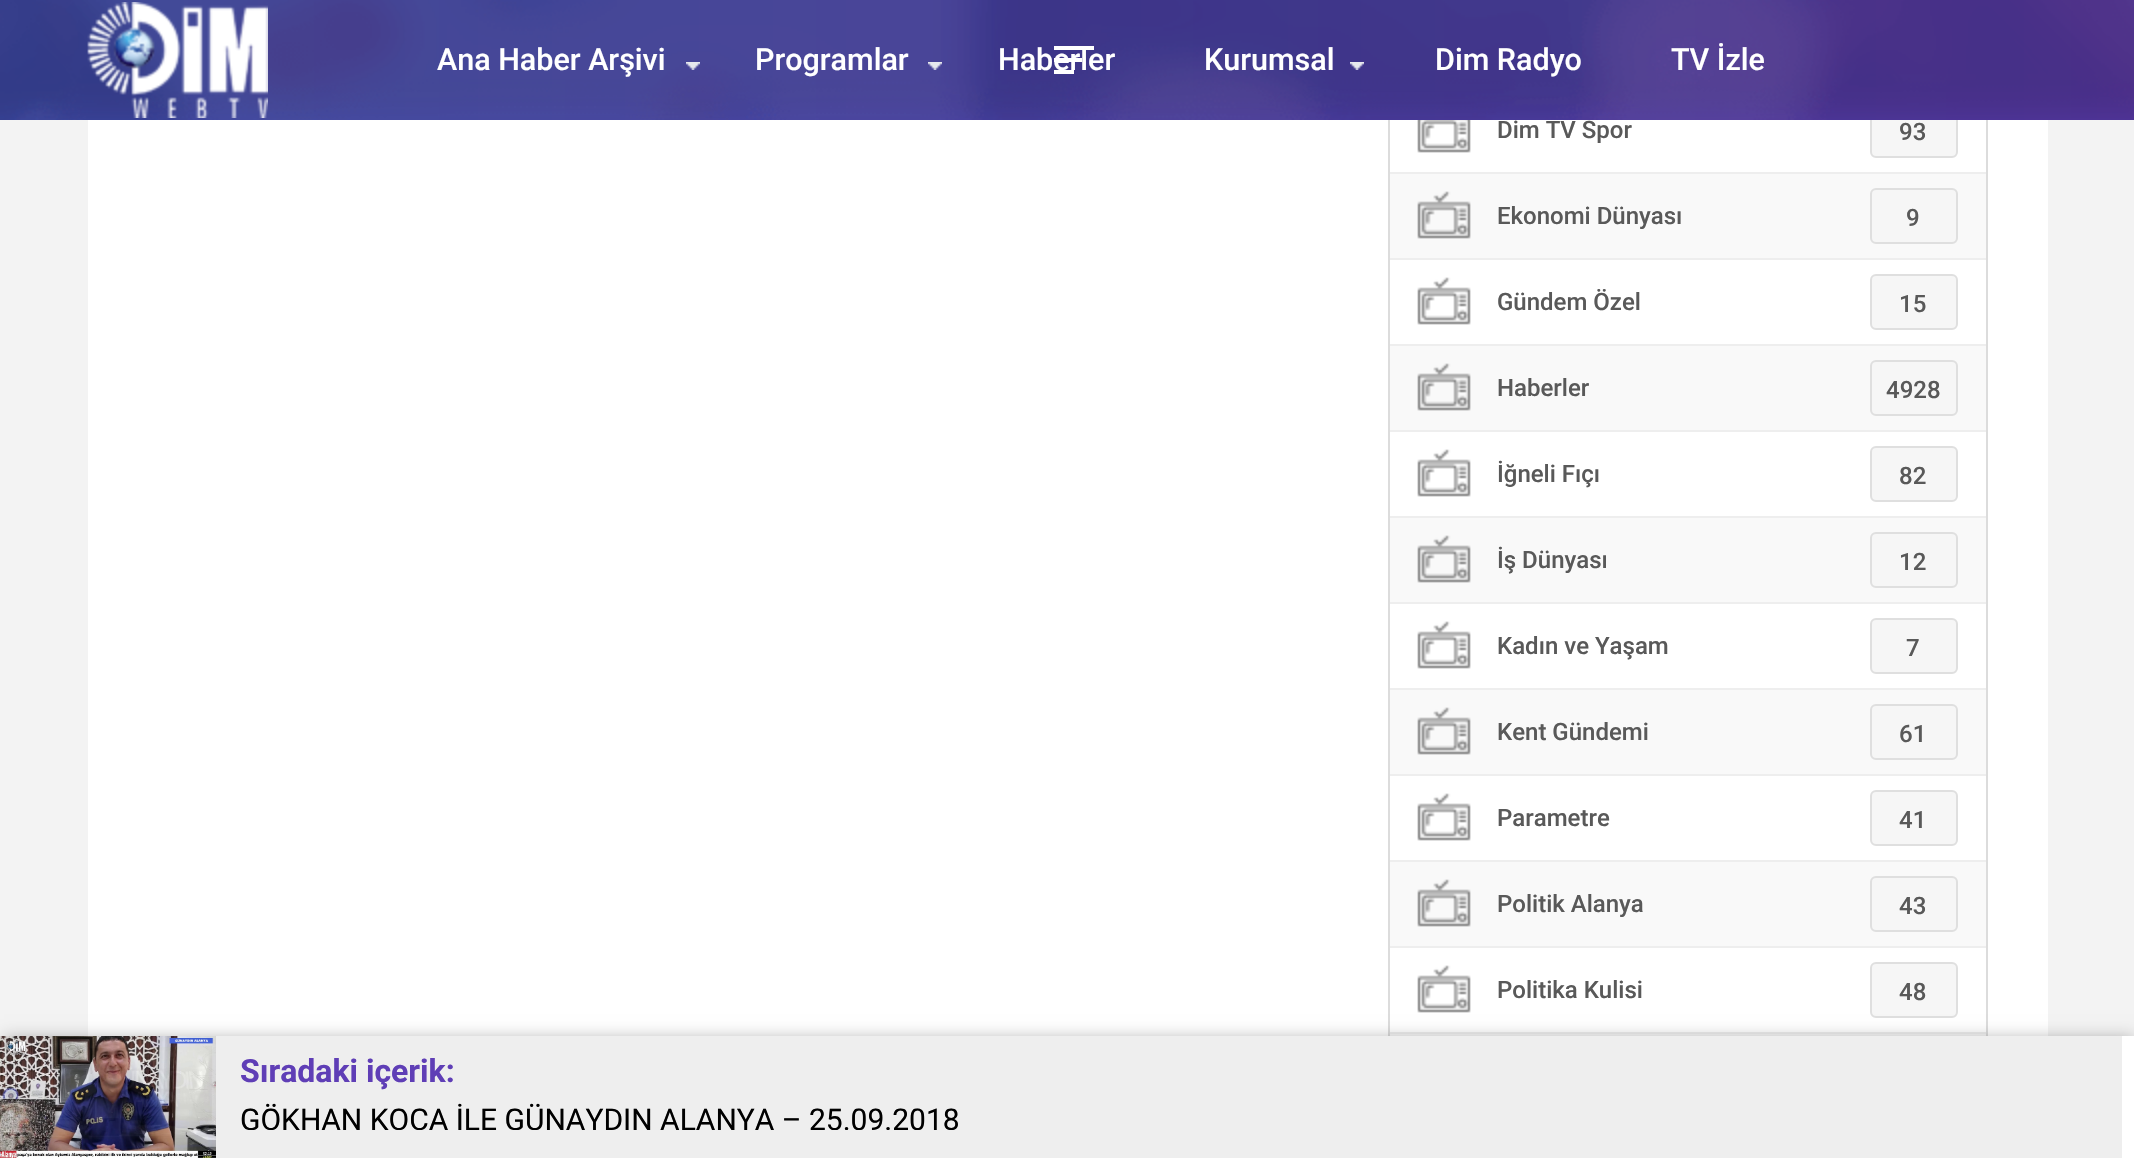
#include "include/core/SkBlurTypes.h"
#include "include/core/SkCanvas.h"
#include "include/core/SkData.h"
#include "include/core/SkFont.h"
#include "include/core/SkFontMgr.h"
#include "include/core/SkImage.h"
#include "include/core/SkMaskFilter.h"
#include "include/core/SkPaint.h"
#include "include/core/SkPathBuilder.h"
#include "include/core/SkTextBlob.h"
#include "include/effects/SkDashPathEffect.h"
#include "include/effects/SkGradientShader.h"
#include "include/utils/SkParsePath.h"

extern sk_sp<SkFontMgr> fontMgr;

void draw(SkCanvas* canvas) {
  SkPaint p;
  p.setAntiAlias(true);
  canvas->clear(SkColorSetRGB(243, 243, 243));
  p.setColor(SK_ColorWHITE);
  canvas->drawRect(SkRect::MakeLTRB(88, 120, 2048, 1036), p);
  p.setStyle(SkPaint::kStroke_Style);
  p.setStrokeWidth(2);
  p.setColor(SkColorSetRGB(220, 220, 220));
  canvas->drawRect(SkRect::MakeLTRB(1389, -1, 1987, 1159), p);
  p.setStyle(SkPaint::kFill_Style);
  p.setColor(SkColorSetRGB(246, 246, 246));
  canvas->drawRoundRect(SkRect::MakeLTRB(1871, 103, 1957, 157), 5, 5, p);
  p.setStyle(SkPaint::kStroke_Style);
  p.setColor(SkColorSetRGB(223, 223, 223));
  canvas->drawRoundRect(SkRect::MakeLTRB(1871, 103, 1957, 157), 5, 5, p);
  p.setStyle(SkPaint::kFill_Style);
  {
    const SkColor colors[] = {SkColorSetRGB(95, 62, 182), SkColorSetRGB(66, 79, 181)};
    const float stops[] = {0, 1};
    const SkPoint ends[] = {{2134, 60}, {0, 60}};
    p.setShader(SkGradientShader::MakeLinear(ends, colors, stops, 2, SkTileMode::kClamp));
    p.setAlpha(255);
  }
  canvas->drawRect(SkRect::MakeLTRB(0, 0, 2134, 120), p);
  canvas->drawImageRect(SkImages::DeferredFromEncodedData(SkData::MakeFromFileName("images/1.png")), SkRect::MakeLTRB(0, 0, 2134, 120), SkSamplingOptions());
  canvas->drawImageRect(SkImages::DeferredFromEncodedData(SkData::MakeFromFileName("images/2.png")), SkRect::MakeLTRB(87, 2, 268, 118), SkSamplingOptions());
  canvas->drawImageRect(SkImages::DeferredFromEncodedData(SkData::MakeFromFileName("images/3.png")), SkRect::MakeLTRB(686, 62, 700, 70), SkSamplingOptions());
  canvas->drawImageRect(SkImages::DeferredFromEncodedData(SkData::MakeFromFileName("images/4.png")), SkRect::MakeLTRB(928, 62, 942, 70), SkSamplingOptions());
  canvas->drawImageRect(SkImages::DeferredFromEncodedData(SkData::MakeFromFileName("images/5.png")), SkRect::MakeLTRB(1350, 62, 1364, 70), SkSamplingOptions());
  p.setShader(nullptr);
  p.setColor(SK_ColorWHITE);
  canvas->drawRect(SkRect::MakeLTRB(1054, 58, 1082, 62), p);
  canvas->drawRect(SkRect::MakeLTRB(1054, 46, 1094, 50), p);
  canvas->drawRect(SkRect::MakeLTRB(1054, 70, 1074, 74), p);
  p.setColor(SkColorSetRGB(238, 238, 238));
  canvas->drawRect(SkRect::MakeLTRB(1390, 172, 1986, 174), p);
  canvas->drawImageRect(SkImages::DeferredFromEncodedData(SkData::MakeFromFileName("images/6.png")), SkRect::MakeLTRB(1417, 120, 1471, 153), SkSamplingOptions());
  p.setColor(SkColorSetRGB(249, 249, 249));
  canvas->drawRect(SkRect::MakeLTRB(1390, 174, 1986, 258), p);
  p.setColor(SkColorSetRGB(238, 238, 238));
  canvas->drawRect(SkRect::MakeLTRB(1390, 258, 1986, 260), p);
  canvas->drawImageRect(SkImages::DeferredFromEncodedData(SkData::MakeFromFileName("images/7.png")), SkRect::MakeLTRB(1417, 191, 1471, 239), SkSamplingOptions());
  p.setColor(SkColorSetRGB(246, 246, 246));
  canvas->drawRoundRect(SkRect::MakeLTRB(1871, 189, 1957, 243), 5, 5, p);
  p.setStyle(SkPaint::kStroke_Style);
  p.setColor(SkColorSetRGB(223, 223, 223));
  canvas->drawRoundRect(SkRect::MakeLTRB(1871, 189, 1957, 243), 5, 5, p);
  p.setStyle(SkPaint::kFill_Style);
  p.setColor(SkColorSetRGB(238, 238, 238));
  canvas->drawRect(SkRect::MakeLTRB(1390, 344, 1986, 346), p);
  canvas->drawImageRect(SkImages::DeferredFromEncodedData(SkData::MakeFromFileName("images/8.png")), SkRect::MakeLTRB(1417, 277, 1471, 325), SkSamplingOptions());
  p.setColor(SkColorSetRGB(246, 246, 246));
  canvas->drawRoundRect(SkRect::MakeLTRB(1871, 275, 1957, 329), 5, 5, p);
  p.setStyle(SkPaint::kStroke_Style);
  p.setColor(SkColorSetRGB(223, 223, 223));
  canvas->drawRoundRect(SkRect::MakeLTRB(1871, 275, 1957, 329), 5, 5, p);
  p.setStyle(SkPaint::kFill_Style);
  p.setColor(SkColorSetRGB(249, 249, 249));
  canvas->drawRect(SkRect::MakeLTRB(1390, 346, 1986, 430), p);
  p.setColor(SkColorSetRGB(238, 238, 238));
  canvas->drawRect(SkRect::MakeLTRB(1390, 430, 1986, 432), p);
  canvas->drawImageRect(SkImages::DeferredFromEncodedData(SkData::MakeFromFileName("images/7.png")), SkRect::MakeLTRB(1417, 363, 1471, 411), SkSamplingOptions());
  p.setColor(SkColorSetRGB(246, 246, 246));
  canvas->drawRoundRect(SkRect::MakeLTRB(1871, 361, 1957, 415), 5, 5, p);
  p.setStyle(SkPaint::kStroke_Style);
  p.setColor(SkColorSetRGB(223, 223, 223));
  canvas->drawRoundRect(SkRect::MakeLTRB(1871, 361, 1957, 415), 5, 5, p);
  p.setStyle(SkPaint::kFill_Style);
  p.setColor(SkColorSetRGB(238, 238, 238));
  canvas->drawRect(SkRect::MakeLTRB(1390, 516, 1986, 518), p);
  canvas->drawImageRect(SkImages::DeferredFromEncodedData(SkData::MakeFromFileName("images/8.png")), SkRect::MakeLTRB(1417, 449, 1471, 497), SkSamplingOptions());
  p.setColor(SkColorSetRGB(246, 246, 246));
  canvas->drawRoundRect(SkRect::MakeLTRB(1871, 447, 1957, 501), 5, 5, p);
  p.setStyle(SkPaint::kStroke_Style);
  p.setColor(SkColorSetRGB(223, 223, 223));
  canvas->drawRoundRect(SkRect::MakeLTRB(1871, 447, 1957, 501), 5, 5, p);
  p.setStyle(SkPaint::kFill_Style);
  p.setColor(SkColorSetRGB(249, 249, 249));
  canvas->drawRect(SkRect::MakeLTRB(1390, 518, 1986, 602), p);
  p.setColor(SkColorSetRGB(238, 238, 238));
  canvas->drawRect(SkRect::MakeLTRB(1390, 602, 1986, 604), p);
  canvas->drawImageRect(SkImages::DeferredFromEncodedData(SkData::MakeFromFileName("images/7.png")), SkRect::MakeLTRB(1417, 535, 1471, 583), SkSamplingOptions());
  p.setColor(SkColorSetRGB(246, 246, 246));
  canvas->drawRoundRect(SkRect::MakeLTRB(1871, 533, 1957, 587), 5, 5, p);
  p.setStyle(SkPaint::kStroke_Style);
  p.setColor(SkColorSetRGB(223, 223, 223));
  canvas->drawRoundRect(SkRect::MakeLTRB(1871, 533, 1957, 587), 5, 5, p);
  p.setStyle(SkPaint::kFill_Style);
  p.setColor(SkColorSetRGB(238, 238, 238));
  canvas->drawRect(SkRect::MakeLTRB(1390, 688, 1986, 690), p);
  canvas->drawImageRect(SkImages::DeferredFromEncodedData(SkData::MakeFromFileName("images/8.png")), SkRect::MakeLTRB(1417, 621, 1471, 669), SkSamplingOptions());
  p.setColor(SkColorSetRGB(246, 246, 246));
  canvas->drawRoundRect(SkRect::MakeLTRB(1871, 619, 1957, 673), 5, 5, p);
  p.setStyle(SkPaint::kStroke_Style);
  p.setColor(SkColorSetRGB(223, 223, 223));
  canvas->drawRoundRect(SkRect::MakeLTRB(1871, 619, 1957, 673), 5, 5, p);
  p.setStyle(SkPaint::kFill_Style);
  p.setColor(SkColorSetRGB(249, 249, 249));
  canvas->drawRect(SkRect::MakeLTRB(1390, 690, 1986, 774), p);
  p.setColor(SkColorSetRGB(238, 238, 238));
  canvas->drawRect(SkRect::MakeLTRB(1390, 774, 1986, 776), p);
  canvas->drawImageRect(SkImages::DeferredFromEncodedData(SkData::MakeFromFileName("images/7.png")), SkRect::MakeLTRB(1417, 707, 1471, 755), SkSamplingOptions());
  p.setColor(SkColorSetRGB(246, 246, 246));
  canvas->drawRoundRect(SkRect::MakeLTRB(1871, 705, 1957, 759), 5, 5, p);
  p.setStyle(SkPaint::kStroke_Style);
  p.setColor(SkColorSetRGB(223, 223, 223));
  canvas->drawRoundRect(SkRect::MakeLTRB(1871, 705, 1957, 759), 5, 5, p);
  p.setStyle(SkPaint::kFill_Style);
  p.setColor(SkColorSetRGB(238, 238, 238));
  canvas->drawRect(SkRect::MakeLTRB(1390, 860, 1986, 862), p);
  canvas->drawImageRect(SkImages::DeferredFromEncodedData(SkData::MakeFromFileName("images/8.png")), SkRect::MakeLTRB(1417, 793, 1471, 841), SkSamplingOptions());
  p.setColor(SkColorSetRGB(246, 246, 246));
  canvas->drawRoundRect(SkRect::MakeLTRB(1871, 791, 1957, 845), 5, 5, p);
  p.setStyle(SkPaint::kStroke_Style);
  p.setColor(SkColorSetRGB(223, 223, 223));
  canvas->drawRoundRect(SkRect::MakeLTRB(1871, 791, 1957, 845), 5, 5, p);
  p.setStyle(SkPaint::kFill_Style);
  p.setColor(SkColorSetRGB(249, 249, 249));
  canvas->drawRect(SkRect::MakeLTRB(1390, 862, 1986, 946), p);
  p.setColor(SkColorSetRGB(238, 238, 238));
  canvas->drawRect(SkRect::MakeLTRB(1390, 946, 1986, 948), p);
  canvas->drawImageRect(SkImages::DeferredFromEncodedData(SkData::MakeFromFileName("images/7.png")), SkRect::MakeLTRB(1417, 879, 1471, 927), SkSamplingOptions());
  p.setColor(SkColorSetRGB(246, 246, 246));
  canvas->drawRoundRect(SkRect::MakeLTRB(1871, 877, 1957, 931), 5, 5, p);
  p.setStyle(SkPaint::kStroke_Style);
  p.setColor(SkColorSetRGB(223, 223, 223));
  canvas->drawRoundRect(SkRect::MakeLTRB(1871, 877, 1957, 931), 5, 5, p);
  p.setStyle(SkPaint::kFill_Style);
  p.setColor(SkColorSetRGB(238, 238, 238));
  canvas->drawRect(SkRect::MakeLTRB(1390, 1032, 1986, 1034), p);
  canvas->drawImageRect(SkImages::DeferredFromEncodedData(SkData::MakeFromFileName("images/8.png")), SkRect::MakeLTRB(1417, 965, 1471, 1013), SkSamplingOptions());
  p.setColor(SkColorSetRGB(246, 246, 246));
  canvas->drawRoundRect(SkRect::MakeLTRB(1871, 963, 1957, 1017), 5, 5, p);
  p.setStyle(SkPaint::kStroke_Style);
  p.setColor(SkColorSetRGB(223, 223, 223));
  canvas->drawRoundRect(SkRect::MakeLTRB(1871, 963, 1957, 1017), 5, 5, p);
  p.setStyle(SkPaint::kFill_Style);
  p.setColor(SkColorSetRGB(249, 249, 249));
  canvas->drawRect(SkRect::MakeLTRB(1390, 1034, 1986, 1036), p);
  p.setColor(SkColorSetARGB(77, 0, 0, 0));
  p.setMaskFilter(SkMaskFilter::MakeBlur(kNormal_SkBlurStyle, 8));
  canvas->drawRect(SkRect::MakeLTRB(4, 1038, 2134, 1156), p);
  p.setMaskFilter(nullptr);
  p.setColor(SK_ColorWHITE);
  canvas->drawRect(SkRect::MakeLTRB(0, 1036, 2134, 1158), p);
  p.setColor(SkColorSetRGB(238, 238, 238));
  canvas->drawRect(SkRect::MakeLTRB(150, 1036, 2122, 1158), p);
  canvas->drawImageRect(SkImages::DeferredFromEncodedData(SkData::MakeFromFileName("images/9.png")), SkRect::MakeLTRB(0, 1036, 216, 1158), SkSamplingOptions());
  SkFont font1(fontMgr->matchFamilyStyle("Roboto", SkFontStyle(500, SkFontStyle::kNormal_Width, SkFontStyle::kUpright_Slant)), 30.5f);
  font1.setSubpixel(true);
  p.setColor(SK_ColorWHITE);
  canvas->drawString("Ana Haber Arşivi", 437, 70, font1, p);
  canvas->drawString("Programlar", 755, 70, font1, p);
  canvas->drawString("Haberler", 998, 70, font1, p);
  canvas->drawString("Kurumsal", 1204, 70, font1, p);
  canvas->drawString("Dim Radyo", 1435, 70, font1, p);
  canvas->drawString("TV İzle", 1671, 70, font1, p);
  SkFont font2(fontMgr->matchFamilyStyle("Roboto", SkFontStyle(500, SkFontStyle::kNormal_Width, SkFontStyle::kUpright_Slant)), 24);
  font2.setSubpixel(true);
  p.setColor(SkColorSetRGB(89, 89, 89));
  canvas->drawString("Dim TV Spor", 1497, 138, font2, p);
  canvas->drawString("93", 1899, 140, font2, p);
  canvas->drawString("Ekonomi Dünyası", 1497, 224, font2, p);
  canvas->drawString("9", 1906, 226, font2, p);
  canvas->drawString("Gündem Özel", 1497, 310, font2, p);
  canvas->drawString("15", 1899, 312, font2, p);
  canvas->drawString("Haberler", 1497, 396, font2, p);
  canvas->drawString("4928", 1886, 398, font2, p);
  canvas->drawString("İğneli Fıçı", 1497, 482, font2, p);
  canvas->drawString("82", 1899, 484, font2, p);
  canvas->drawString("İş Dünyası", 1497, 568, font2, p);
  canvas->drawString("12", 1899, 570, font2, p);
  canvas->drawString("Kadın ve Yaşam", 1497, 654, font2, p);
  canvas->drawString("7", 1906, 656, font2, p);
  canvas->drawString("Kent Gündemi", 1497, 740, font2, p);
  canvas->drawString("61", 1899, 742, font2, p);
  canvas->drawString("Parametre", 1497, 826, font2, p);
  canvas->drawString("41", 1899, 828, font2, p);
  canvas->drawString("Politik Alanya", 1497, 912, font2, p);
  canvas->drawString("43", 1899, 914, font2, p);
  canvas->drawString("Politika Kulisi", 1497, 998, font2, p);
  canvas->drawString("48", 1899, 1000, font2, p);
  SkFont font3(fontMgr->matchFamilyStyle("Roboto", SkFontStyle::Bold()), 32);
  font3.setSubpixel(true);
  p.setColor(SkColorSetRGB(95, 62, 182));
  canvas->drawString("Sıradaki içerik:", 240, 1082, font3, p);
  canvas->save();
  canvas->clipRect(SkRect::MakeLTRB(216, 1080, 960, 1130));
  SkFont font4(fontMgr->matchFamilyStyle("Roboto", SkFontStyle::Normal()), 30);
  font4.setSubpixel(true);
  p.setColor(SK_ColorBLACK);
  canvas->drawString("GÖKHAN KOCA İLE GÜNAYDIN ALANYA – 25.09.2018", 240, 1130, font4, p);
  canvas->restore();
}
